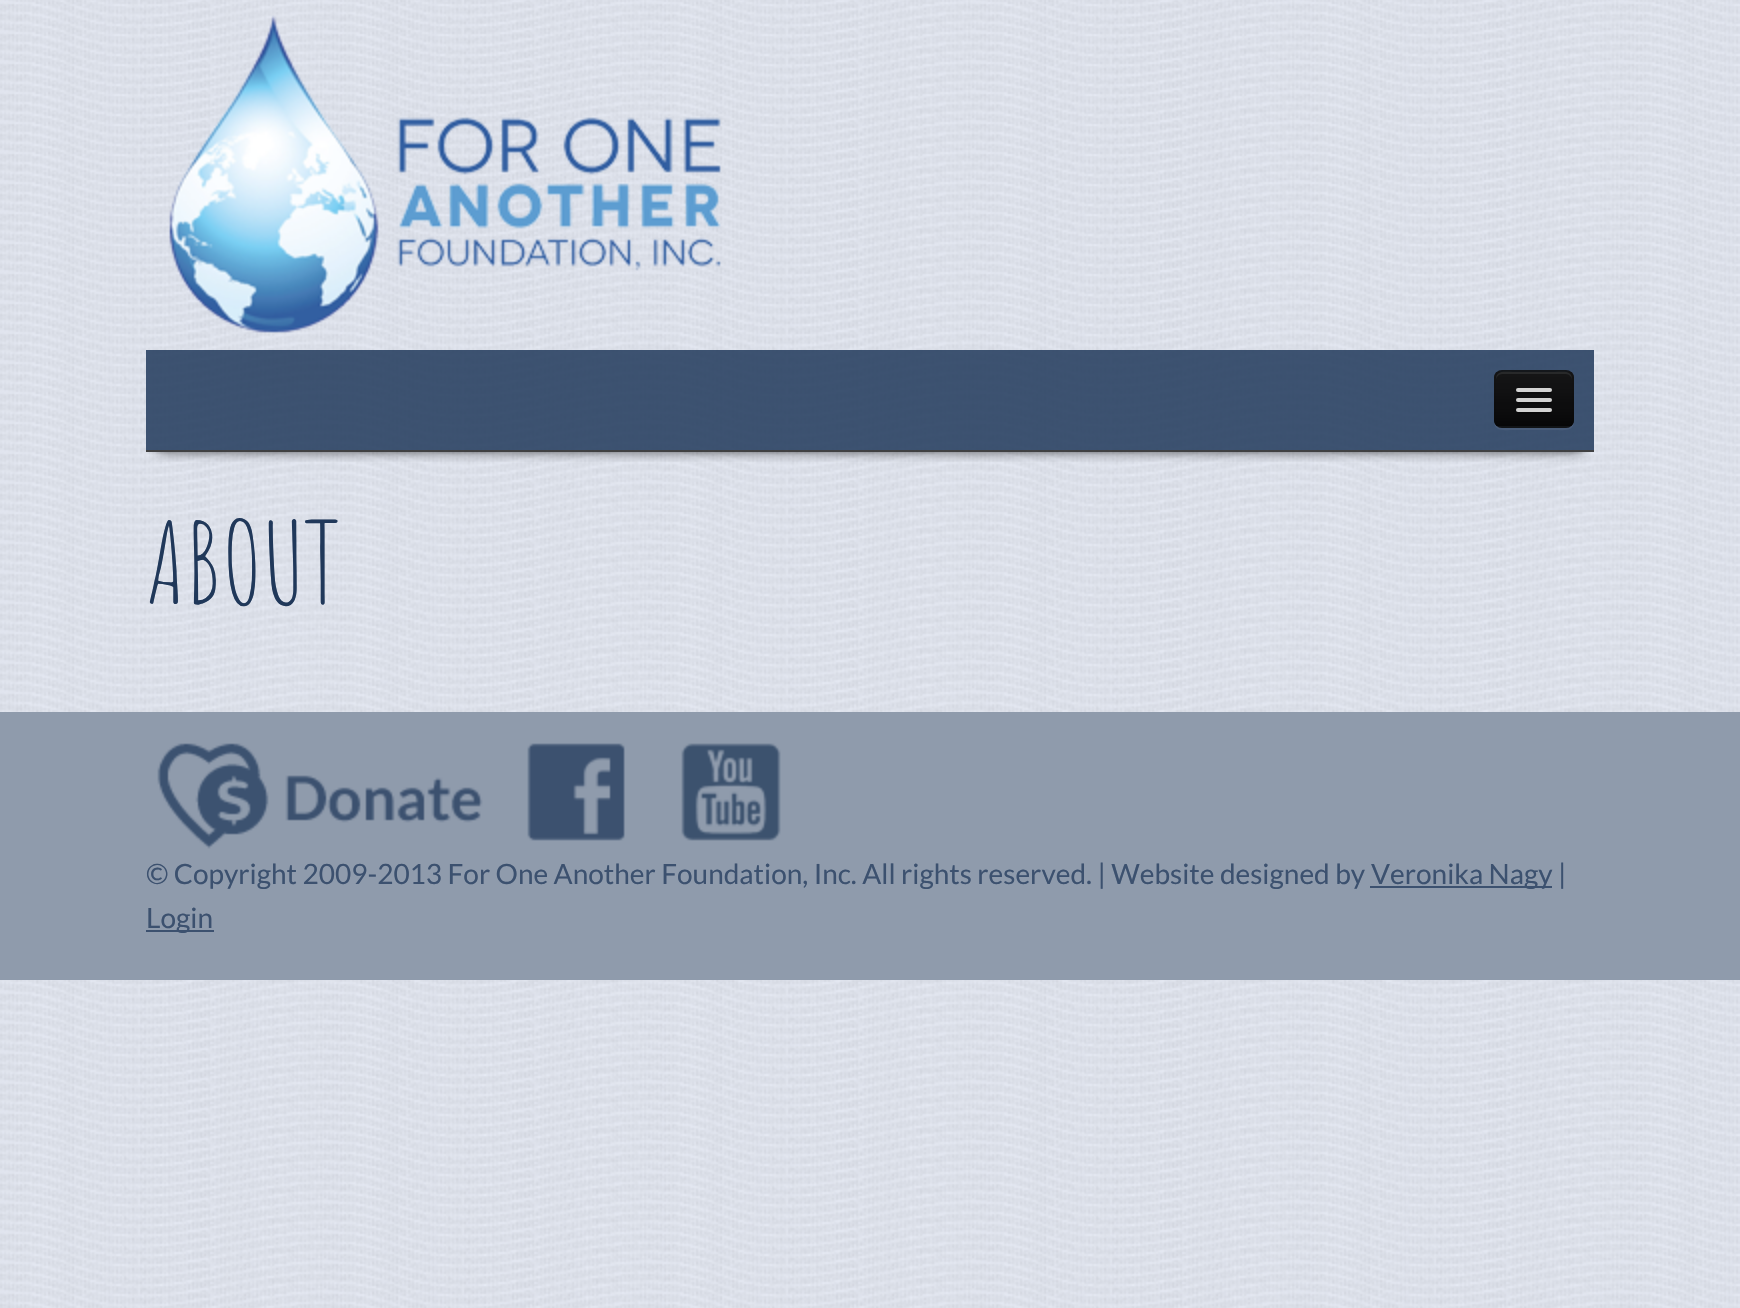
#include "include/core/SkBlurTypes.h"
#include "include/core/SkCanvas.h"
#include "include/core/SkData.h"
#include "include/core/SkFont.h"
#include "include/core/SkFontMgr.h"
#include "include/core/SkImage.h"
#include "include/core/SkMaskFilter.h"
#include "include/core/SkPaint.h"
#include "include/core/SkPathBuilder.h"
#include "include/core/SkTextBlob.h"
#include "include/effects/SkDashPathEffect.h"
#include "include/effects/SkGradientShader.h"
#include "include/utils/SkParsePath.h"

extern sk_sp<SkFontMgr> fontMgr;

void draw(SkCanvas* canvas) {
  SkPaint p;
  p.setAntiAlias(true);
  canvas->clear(SK_ColorWHITE);
  canvas->drawImageRect(SkImages::DeferredFromEncodedData(SkData::MakeFromFileName("images/1.png")), SkRect::MakeLTRB(0, 0, 1740, 1308), SkSamplingOptions());
  canvas->drawImageRect(SkImages::DeferredFromEncodedData(SkData::MakeFromFileName("images/2.png")), SkRect::MakeLTRB(169, 15, 721, 333), SkSamplingOptions());
  canvas->save();
  canvas->clipRect(SkRect::MakeLTRB(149, 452, 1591, 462));
  p.setColor(SkColorSetARGB(217, 0, 0, 0));
  p.setMaskFilter(SkMaskFilter::MakeBlur(kNormal_SkBlurStyle, 6));
  canvas->drawRect(SkRect::MakeLTRB(158, 372, 1582, 450), p);
  p.setMaskFilter(nullptr);
  canvas->restore();
  p.setColor(SkColorSetARGB(217, 32, 56, 90));
  canvas->drawRect(SkRect::MakeLTRB(146, 350, 1594, 450), p);
  p.setColor(SkColorSetARGB(217, 37, 37, 37));
  canvas->drawRect(SkRect::MakeLTRB(146, 450, 1594, 452), p);
  p.setColor(SkColorSetRGB(73, 92, 121));
  canvas->drawPath(SkPathBuilder().moveTo(1494, 420).cubicTo(1494, 432, 1503, 430, 1513, 430).lineTo(1555, 430).cubicTo(1565, 430, 1574, 432, 1574, 420).cubicTo(1574, 424, 1570, 428, 1566, 428).lineTo(1502, 428).cubicTo(1498, 428, 1494, 424, 1494, 420).close().detach(), p);
  p.setColor(SkColorSetARGB(217, 14, 14, 14));
  canvas->drawRoundRect(SkRect::MakeLTRB(1494, 370, 1574, 428), 8, 8, p);
  canvas->save();
  canvas->clipPath(SkPathBuilder().moveTo(1502, 370).lineTo(1566, 370).cubicTo(1570.5f, 370, 1574, 373.5f, 1574, 378).lineTo(1574, 420).cubicTo(1574, 424.5f, 1570.5f, 428, 1566, 428).lineTo(1502, 428).cubicTo(1497.5f, 428, 1494, 424.5f, 1494, 420).lineTo(1494, 378).cubicTo(1494, 373.5f, 1497.5f, 370, 1502, 370).close().detach(), true);
  {
    const SkColor colors[] = {SkColorSetARGB(217, 21, 21, 21), SkColorSetARGB(217, 4, 4, 4)};
    const float stops[] = {0, 1};
    const SkPoint ends[] = {{1534, 372}, {1534, 426}};
    p.setShader(SkGradientShader::MakeLinear(ends, colors, stops, 2, SkTileMode::kClamp));
    p.setAlpha(255);
  }
  canvas->drawRect(SkRect::MakeLTRB(1494, 372, 1574, 426), p);
  canvas->restore();
  p.setShader(nullptr);
  p.setColor(SkColorSetRGB(40, 41, 42));
  canvas->drawPath(SkPathBuilder().moveTo(1502, 374).lineTo(1566, 374).cubicTo(1569, 374, 1572, 377, 1572, 380).cubicTo(1572, 370, 1564, 372, 1555, 372).lineTo(1513, 372).cubicTo(1504, 372, 1496, 370, 1496, 380).cubicTo(1496, 377, 1499, 374, 1502, 374).close().detach(), p);
  p.setStyle(SkPaint::kStroke_Style);
  p.setStrokeWidth(2);
  p.setColor(SkColorSetARGB(54, 0, 0, 0));
  canvas->drawPath(SkPathBuilder().moveTo(1571, 425).cubicTo(1569.5f, 426.5f, 1568, 427, 1566, 427).lineTo(1502, 427).cubicTo(1500, 427, 1498.5f, 426.5f, 1497, 425).detach(), p);
  p.setColor(SkColorSetARGB(23, 0, 0, 0));
  canvas->drawPath(SkPathBuilder().moveTo(1497, 425).cubicTo(1495.5f, 423.5f, 1495, 422, 1495, 420).lineTo(1495, 378).cubicTo(1495, 376, 1495.5f, 374.5f, 1497, 373).cubicTo(1498.5f, 371.5f, 1500, 371, 1502, 371).lineTo(1566, 371).cubicTo(1568, 371, 1569.5f, 371.5f, 1571, 373).cubicTo(1572.5f, 374.5f, 1573, 376, 1573, 378).lineTo(1573, 420).cubicTo(1573, 422, 1572.5f, 423.5f, 1571, 425).detach(), p);
  p.setStyle(SkPaint::kFill_Style);
  p.setColor(SkColorSetRGB(12, 12, 13));
  canvas->drawPath(SkPathBuilder().moveTo(1516.5f, 391).cubicTo(1514, 395, 1523, 394, 1523.5f, 394).lineTo(1544.5f, 394).cubicTo(1545, 394, 1554, 395, 1551.5f, 391).cubicTo(1551.5f, 391.5f, 1550.5f, 392, 1550, 392).lineTo(1518, 392).cubicTo(1517.5f, 392, 1516.5f, 391.5f, 1516.5f, 391).close().detach(), p);
  p.setColor(SkColorSetRGB(211, 211, 211));
  canvas->drawRoundRect(SkRect::MakeLTRB(1516, 388, 1552, 392), 2, 2, p);
  p.setColor(SkColorSetRGB(10, 10, 11));
  canvas->drawPath(SkPathBuilder().moveTo(1516.5f, 401).cubicTo(1514, 405, 1523, 404, 1523.5f, 404).lineTo(1544.5f, 404).cubicTo(1545, 404, 1554, 405, 1551.5f, 401).cubicTo(1551.5f, 401.5f, 1550.5f, 402, 1550, 402).lineTo(1518, 402).cubicTo(1517.5f, 402, 1516.5f, 401.5f, 1516.5f, 401).close().detach(), p);
  p.setColor(SkColorSetRGB(210, 210, 210));
  canvas->drawRoundRect(SkRect::MakeLTRB(1516, 398, 1552, 402), 2, 2, p);
  p.setColor(SkColorSetRGB(8, 8, 9));
  canvas->drawPath(SkPathBuilder().moveTo(1516.5f, 411).cubicTo(1514, 415, 1523, 414, 1523.5f, 414).lineTo(1544.5f, 414).cubicTo(1545, 414, 1554, 415, 1551.5f, 411).cubicTo(1551.5f, 411.5f, 1550.5f, 412, 1550, 412).lineTo(1518, 412).cubicTo(1517.5f, 412, 1516.5f, 411.5f, 1516.5f, 411).close().detach(), p);
  p.setColor(SkColorSetRGB(210, 210, 210));
  canvas->drawRoundRect(SkRect::MakeLTRB(1516, 408, 1552, 412), 2, 2, p);
  p.setColor(SkColorSetRGB(143, 155, 172));
  canvas->drawRect(SkRect::MakeLTRB(0, 712, 1740, 980), p);
  canvas->drawImageRect(SkImages::DeferredFromEncodedData(SkData::MakeFromFileName("images/3.png")), SkRect::MakeLTRB(157, 743, 483, 849), SkSamplingOptions());
  canvas->drawImageRect(SkImages::DeferredFromEncodedData(SkData::MakeFromFileName("images/4.png")), SkRect::MakeLTRB(527, 743, 625, 841), SkSamplingOptions());
  canvas->drawImageRect(SkImages::DeferredFromEncodedData(SkData::MakeFromFileName("images/5.png")), SkRect::MakeLTRB(681, 743, 781, 841), SkSamplingOptions());
  p.setColor(SkColorSetRGB(60, 81, 111));
  canvas->drawRect(SkRect::MakeLTRB(1370, 886, 1552, 888), p);
  canvas->drawRect(SkRect::MakeLTRB(146, 930, 214, 932), p);
  SkFont font1(fontMgr->matchFamilyStyle("Amatic SC", SkFontStyle::Normal()), 112);
  font1.setSubpixel(true);
  p.setColor(SkColorSetRGB(32, 56, 90));
  canvas->drawString("ABOUT", 146, 604, font1, p);
  SkFont font2(fontMgr->matchFamilyStyle("Lato", SkFontStyle::Normal()), 28);
  font2.setSubpixel(true);
  p.setColor(SkColorSetRGB(60, 81, 111));
  canvas->drawString("© Copyright 2009-2013 For One Another Foundation, Inc. All rights reserved. | Website designed by", 146, 884, font2, p);
  canvas->drawString("Veronika Nagy |", 1371, 884, font2, p);
  canvas->drawString("Login", 146, 928, font2, p);
}
